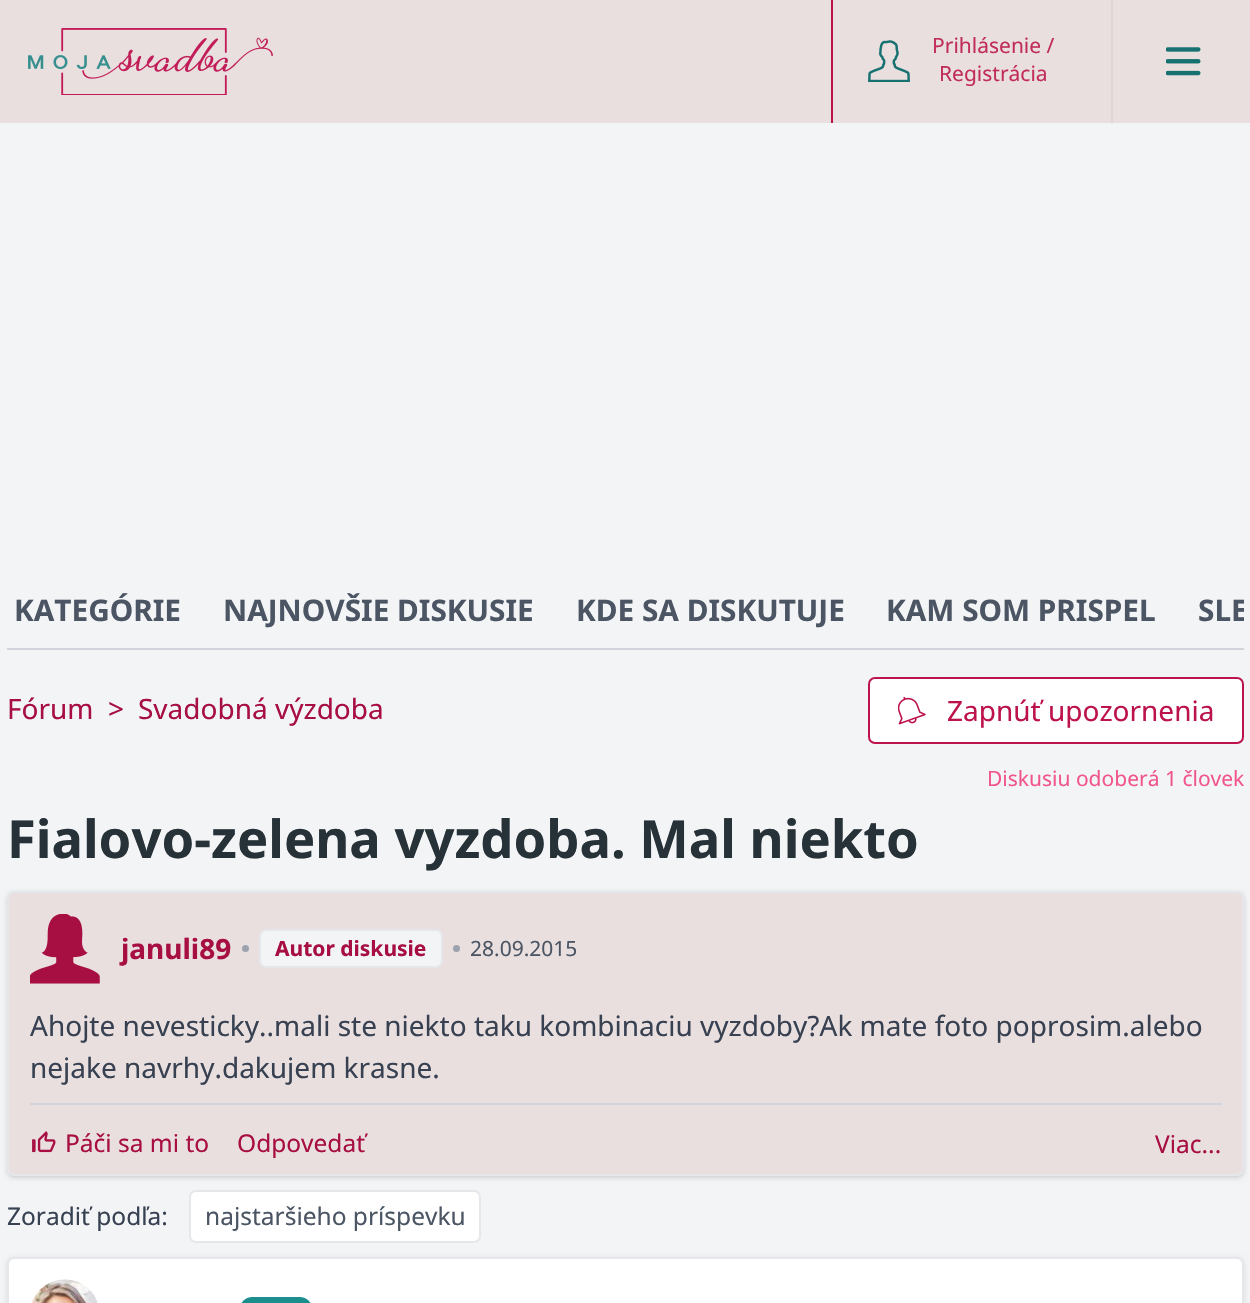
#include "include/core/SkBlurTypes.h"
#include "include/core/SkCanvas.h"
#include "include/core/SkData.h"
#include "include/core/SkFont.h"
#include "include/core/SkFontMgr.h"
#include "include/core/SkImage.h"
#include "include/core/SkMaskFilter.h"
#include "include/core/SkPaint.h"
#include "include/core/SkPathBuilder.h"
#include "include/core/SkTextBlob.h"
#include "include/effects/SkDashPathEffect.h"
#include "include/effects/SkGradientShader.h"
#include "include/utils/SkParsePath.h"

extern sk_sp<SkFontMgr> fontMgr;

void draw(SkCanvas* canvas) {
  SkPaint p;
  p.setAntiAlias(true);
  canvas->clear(SkColorSetRGB(243, 244, 246));
  p.setColor(SkColorSetRGB(234, 223, 223));
  canvas->drawRect(SkRect::MakeLTRB(0, 0, 1250, 123), p);
  canvas->drawImageRect(SkImages::DeferredFromEncodedData(SkData::MakeFromFileName("images/1.png")), SkRect::MakeLTRB(28, 28, 273, 95), SkSamplingOptions());
  p.setColor(SkColorSetRGB(189, 19, 77));
  canvas->drawRect(SkRect::MakeLTRB(831, 0, 833, 123), p);
  canvas->drawImageRect(SkImages::DeferredFromEncodedData(SkData::MakeFromFileName("images/2.png")), SkRect::MakeLTRB(868, 40, 910, 82), SkSamplingOptions());
  p.setColor(SkColorSetRGB(225, 214, 214));
  canvas->drawRect(SkRect::MakeLTRB(1111, 0, 1113, 123), p);
  canvas->drawImageRect(SkImages::DeferredFromEncodedData(SkData::MakeFromFileName("images/3.png")), SkRect::MakeLTRB(1166, 47, 1201, 76), SkSamplingOptions());
  p.setColor(SkColorSetRGB(209, 213, 219));
  canvas->drawRect(SkRect::MakeLTRB(7, 648, 1244, 650), p);
  p.setColor(SK_ColorWHITE);
  canvas->drawRoundRect(SkRect::MakeLTRB(869, 678, 1243, 743), 6, 6, p);
  p.setStyle(SkPaint::kStroke_Style);
  p.setStrokeWidth(2);
  p.setColor(SkColorSetRGB(189, 19, 77));
  canvas->drawRoundRect(SkRect::MakeLTRB(869, 678, 1243, 743), 6, 6, p);
  canvas->drawImageRect(SkImages::DeferredFromEncodedData(SkData::MakeFromFileName("images/4.png")), SkRect::MakeLTRB(898, 697, 926, 725), SkSamplingOptions());
  p.setStyle(SkPaint::kFill_Style);
  p.setColor(SkColorSetARGB(26, 0, 0, 0));
  p.setMaskFilter(SkMaskFilter::MakeBlur(kNormal_SkBlurStyle, 2));
  canvas->drawRoundRect(SkRect::MakeLTRB(9, 894, 1243, 1176), 5, 5, p);
  p.setMaskFilter(nullptr);
  p.setMaskFilter(SkMaskFilter::MakeBlur(kNormal_SkBlurStyle, 2.5f));
  canvas->drawRoundRect(SkRect::MakeLTRB(7, 893, 1244, 1178), 7, 7, p);
  p.setMaskFilter(nullptr);
  p.setColor(SkColorSetRGB(234, 223, 223));
  canvas->drawRoundRect(SkRect::MakeLTRB(8, 892, 1243, 1175), 6, 6, p);
  p.setStyle(SkPaint::kStroke_Style);
  p.setColor(SkColorSetRGB(229, 231, 235));
  canvas->drawRoundRect(SkRect::MakeLTRB(8, 892, 1243, 1175), 6, 6, p);
  canvas->drawImageRect(SkImages::DeferredFromEncodedData(SkData::MakeFromFileName("images/5.png")), SkRect::MakeLTRB(30, 914, 100, 984), SkSamplingOptions());
  p.setStyle(SkPaint::kFill_Style);
  p.setColor(SkColorSetRGB(156, 163, 175));
  canvas->drawCircle(245.5f, 948.5f, 3.5f, p);
  p.setColor(SkColorSetRGB(243, 244, 246));
  canvas->drawRoundRect(SkRect::MakeLTRB(260, 930, 442, 967), 6, 6, p);
  p.setStyle(SkPaint::kStroke_Style);
  p.setColor(SkColorSetRGB(229, 231, 235));
  canvas->drawRoundRect(SkRect::MakeLTRB(260, 930, 442, 967), 6, 6, p);
  p.setStyle(SkPaint::kFill_Style);
  p.setColor(SkColorSetRGB(156, 163, 175));
  canvas->drawCircle(456.5f, 948.5f, 3.5f, p);
  p.setColor(SkColorSetRGB(209, 213, 219));
  canvas->drawRect(SkRect::MakeLTRB(30, 1103, 1222, 1105), p);
  canvas->drawImageRect(SkImages::DeferredFromEncodedData(SkData::MakeFromFileName("images/6.png")), SkRect::MakeLTRB(32, 1131, 56, 1153), SkSamplingOptions());
  p.setColor(SK_ColorWHITE);
  canvas->drawRoundRect(SkRect::MakeLTRB(190, 1191, 480, 1242), 6, 6, p);
  p.setStyle(SkPaint::kStroke_Style);
  p.setColor(SkColorSetRGB(229, 231, 235));
  canvas->drawRoundRect(SkRect::MakeLTRB(190, 1191, 480, 1242), 6, 6, p);
  p.setStyle(SkPaint::kFill_Style);
  p.setColor(SkColorSetARGB(26, 0, 0, 0));
  p.setMaskFilter(SkMaskFilter::MakeBlur(kNormal_SkBlurStyle, 2.5f));
  canvas->drawRoundRect(SkRect::MakeLTRB(7, 1258, 1244, 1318), 7, 7, p);
  p.setMaskFilter(nullptr);
  p.setColor(SK_ColorWHITE);
  canvas->drawRoundRect(SkRect::MakeLTRB(8, 1258, 1243, 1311), 6, 6, p);
  p.setStyle(SkPaint::kStroke_Style);
  p.setColor(SkColorSetRGB(229, 231, 235));
  canvas->drawRoundRect(SkRect::MakeLTRB(8, 1258, 1243, 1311), 6, 6, p);
  canvas->drawImageRect(SkImages::DeferredFromEncodedData(SkData::MakeFromFileName("images/7.png")), SkRect::MakeLTRB(31, 1279, 98, 1303), SkSamplingOptions());
  p.setStyle(SkPaint::kFill_Style);
  p.setColor(SkColorSetRGB(29, 142, 142));
  canvas->drawRoundRect(SkRect::MakeLTRB(240, 1297, 312, 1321), 17.5f, 17.5f, p);
  SkFont font1(fontMgr->matchFamilyStyle("Noto Sans", SkFontStyle::Normal()), 21);
  font1.setSubpixel(true);
  p.setColor(SkColorSetRGB(193, 45, 90));
  canvas->drawString("Prihlásenie /", 932, 53, font1, p);
  canvas->drawString("Registrácia", 939, 81, font1, p);
  SkFont font2(fontMgr->matchFamilyStyle("Noto Sans", SkFontStyle::Bold()), 29.75f);
  font2.setSubpixel(true);
  p.setColor(SkColorSetRGB(75, 85, 99));
  canvas->drawString("KATEGÓRIE", 14, 621, font2, p);
  canvas->drawString("NAJNOVŠIE DISKUSIE", 223, 621, font2, p);
  canvas->drawString("KDE SA DISKUTUJE", 576, 621, font2, p);
  canvas->drawString("KAM SOM PRISPEL", 886, 621, font2, p);
  canvas->save();
  canvas->clipRect(SkRect::MakeLTRB(7, 588, 1244, 648));
  canvas->drawString("SLE", 1198, 621, font2, p);
  canvas->restore();
  SkFont font3(fontMgr->matchFamilyStyle("Noto Sans", SkFontStyle::Normal()), 28);
  font3.setSubpixel(true);
  p.setColor(SkColorSetRGB(167, 15, 67));
  canvas->drawString("Fórum", 7, 719, font3, p);
  canvas->drawString(">", 108, 719, font3, p);
  canvas->drawString("Svadobná výzdoba", 138, 719, font3, p);
  p.setColor(SkColorSetRGB(189, 19, 77));
  canvas->drawString("Zapnúť upozornenia", 947, 721, font3, p);
  p.setColor(SkColorSetRGB(241, 86, 139));
  canvas->drawString("Diskusiu odoberá 1 človek", 987, 786, font1, p);
  SkFont font4(fontMgr->matchFamilyStyle("Noto Sans", SkFontStyle::Bold()), 52.5f);
  font4.setSubpixel(true);
  p.setColor(SkColorSetRGB(38, 50, 56));
  canvas->drawString("Fialovo-zelena vyzdoba. Mal niekto", 7, 858, font4, p);
  SkFont font5(fontMgr->matchFamilyStyle("Noto Sans", SkFontStyle::Bold()), 28);
  font5.setSubpixel(true);
  p.setColor(SkColorSetRGB(167, 15, 67));
  canvas->drawString("januli89", 121, 959, font5, p);
  SkFont font6(fontMgr->matchFamilyStyle("Noto Sans", SkFontStyle::Bold()), 21);
  font6.setSubpixel(true);
  canvas->drawString("Autor diskusie", 275, 956, font6, p);
  p.setColor(SkColorSetRGB(75, 85, 99));
  canvas->drawString("28.09.2015", 470, 956, font1, p);
  p.setColor(SkColorSetRGB(55, 65, 81));
  canvas->drawString("Ahojte nevesticky..mali ste niekto taku kombinaciu vyzdoby?Ak mate foto poprosim.alebo", 30, 1036, font3, p);
  canvas->drawString("nejake navrhy.dakujem krasne.", 30, 1078, font3, p);
  SkFont font7(fontMgr->matchFamilyStyle("Noto Sans", SkFontStyle::Normal()), 24.5f);
  font7.setSubpixel(true);
  p.setColor(SkColorSetRGB(167, 15, 67));
  canvas->drawString("Páči sa mi to", 65, 1152, font7, p);
  canvas->drawString("Odpovedať", 237, 1152, font7, p);
  canvas->drawString("Viac...", 1155, 1153, font7, p);
  p.setColor(SkColorSetRGB(55, 65, 81));
  canvas->drawString("Zoradiť podľa:", 7, 1225, font7, p);
  p.setColor(SkColorSetRGB(75, 85, 99));
  canvas->drawString("najstaršieho príspevku", 205, 1225, font7, p);
}
